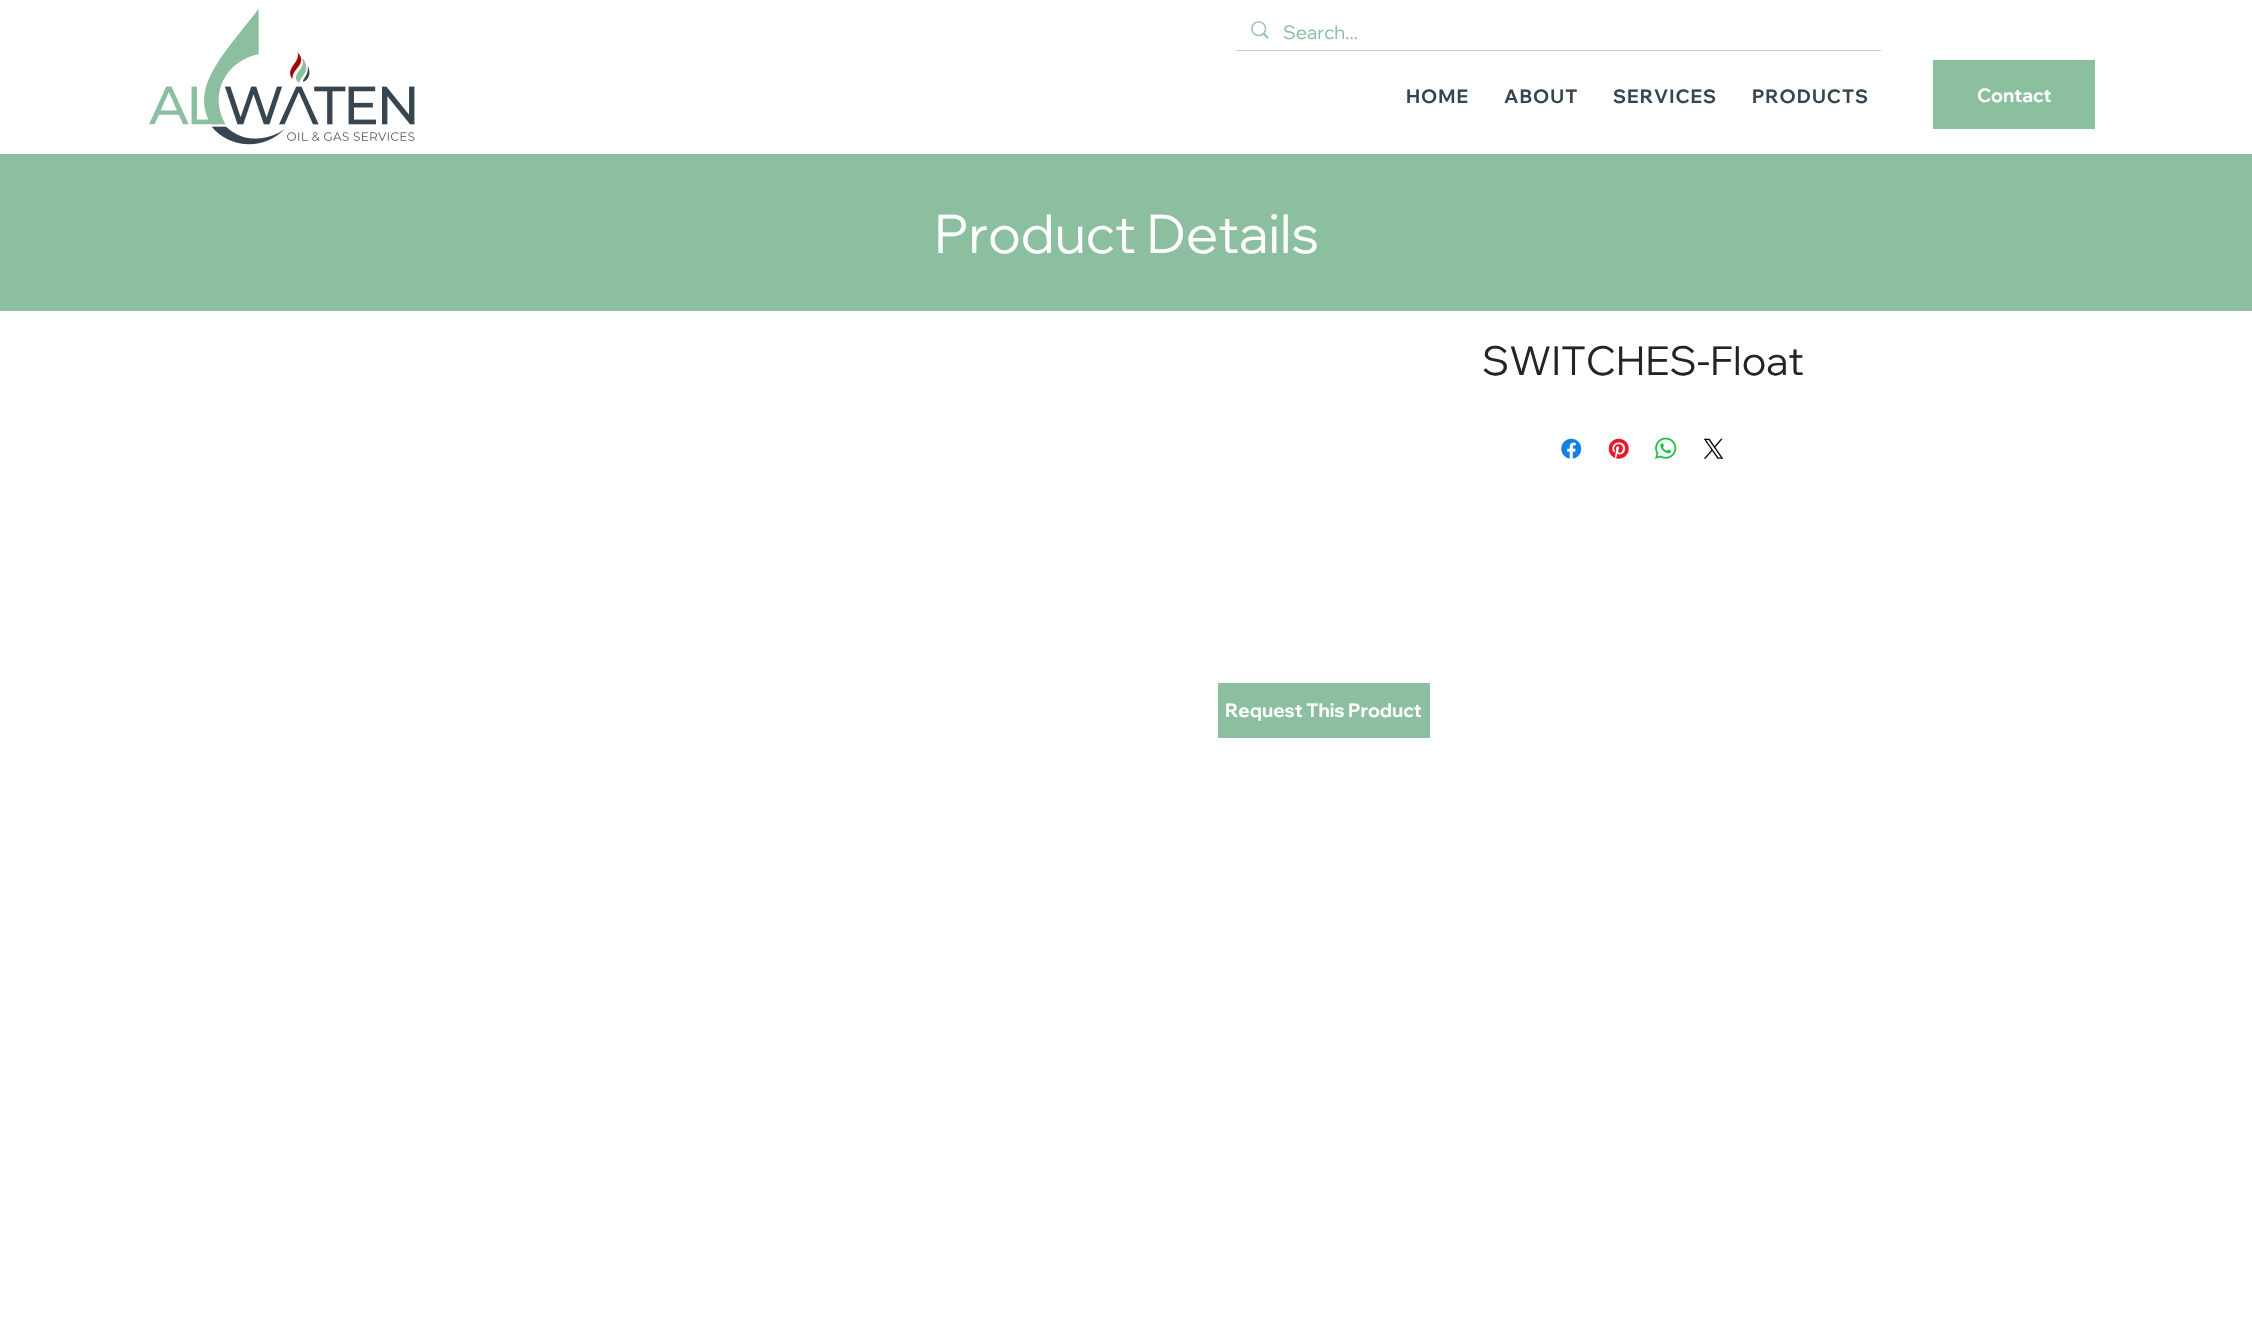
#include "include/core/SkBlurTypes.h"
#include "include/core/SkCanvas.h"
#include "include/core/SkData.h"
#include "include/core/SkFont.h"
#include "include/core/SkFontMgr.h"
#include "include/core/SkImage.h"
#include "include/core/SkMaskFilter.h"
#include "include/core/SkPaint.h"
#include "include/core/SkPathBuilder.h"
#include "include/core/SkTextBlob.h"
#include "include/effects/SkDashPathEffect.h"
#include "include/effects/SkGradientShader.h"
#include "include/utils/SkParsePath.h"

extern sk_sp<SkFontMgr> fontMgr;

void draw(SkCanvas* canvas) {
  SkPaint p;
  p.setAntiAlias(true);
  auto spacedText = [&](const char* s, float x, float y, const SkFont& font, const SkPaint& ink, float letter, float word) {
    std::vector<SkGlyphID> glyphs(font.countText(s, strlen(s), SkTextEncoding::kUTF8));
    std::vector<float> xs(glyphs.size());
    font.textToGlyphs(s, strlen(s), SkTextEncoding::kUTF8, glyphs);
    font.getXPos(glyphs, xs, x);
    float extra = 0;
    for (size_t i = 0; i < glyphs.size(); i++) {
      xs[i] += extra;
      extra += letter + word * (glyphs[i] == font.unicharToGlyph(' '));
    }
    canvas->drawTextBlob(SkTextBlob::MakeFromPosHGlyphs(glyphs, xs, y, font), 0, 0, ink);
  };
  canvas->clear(SK_ColorWHITE);
  canvas->drawImageRect(SkImages::DeferredFromEncodedData(SkData::MakeFromFileName("images/1.png")), SkRect::MakeLTRB(149, 9, 415, 145), SkSamplingOptions());
  p.setColor(SkColorSetRGB(185, 217, 197));
  canvas->drawRect(SkRect::MakeLTRB(1236, 50, 1881, 51), p);
  canvas->drawImageRect(SkImages::DeferredFromEncodedData(SkData::MakeFromFileName("images/2.png")), SkRect::MakeLTRB(1251, 21, 1269, 39), SkSamplingOptions());
  p.setColor(SkColorSetRGB(139, 191, 159));
  canvas->drawRect(SkRect::MakeLTRB(1933, 60, 2095, 129), p);
  canvas->drawRect(SkRect::MakeLTRB(0, 154, 2252, 311), p);
  canvas->drawImageRect(SkImages::DeferredFromEncodedData(SkData::MakeFromFileName("images/3.png")), SkRect::MakeLTRB(1561, 438, 1582, 459), SkSamplingOptions());
  canvas->drawImageRect(SkImages::DeferredFromEncodedData(SkData::MakeFromFileName("images/4.png")), SkRect::MakeLTRB(1608, 438, 1629, 459), SkSamplingOptions());
  canvas->drawImageRect(SkImages::DeferredFromEncodedData(SkData::MakeFromFileName("images/5.png")), SkRect::MakeLTRB(1655, 437, 1677, 459), SkSamplingOptions());
  canvas->drawImageRect(SkImages::DeferredFromEncodedData(SkData::MakeFromFileName("images/6.png")), SkRect::MakeLTRB(1703, 438, 1724, 459), SkSamplingOptions());
  canvas->drawRect(SkRect::MakeLTRB(1218, 683, 1430, 738), p);
  SkFont font1(fontMgr->matchFamilyStyle("Wix Madefor Display", SkFontStyle::Normal()), 18.75f);
  font1.setSubpixel(true);
  canvas->drawString("Search...", 1283, 39, font1, p);
  SkFont font2(fontMgr->matchFamilyStyle("Wix Madefor Display", SkFontStyle::Bold()), 18.75f);
  font2.setSubpixel(true);
  p.setColor(SkColorSetRGB(54, 69, 79));
  spacedText("HOME", 1406, 103, font2, p, 1, 0);
  spacedText("ABOUT", 1504, 103, font2, p, 1, 0);
  spacedText("SERVICES", 1613, 103, font2, p, 1, 0);
  spacedText("PRODUCTS", 1752, 103, font2, p, 1, 0);
  p.setColor(SK_ColorWHITE);
  canvas->drawString("Contact", 1977, 102, font2, p);
  SkFont font3(fontMgr->matchFamilyStyle("Wix Madefor Display", SkFontStyle::Normal()), 53.5f);
  font3.setSubpixel(true);
  canvas->drawString("Product Details", 934, 253, font3, p);
  SkFont font4(fontMgr->matchFamilyStyle("Wix Madefor Display", SkFontStyle::Normal()), 40);
  font4.setSubpixel(true);
  p.setColor(SkColorSetRGB(36, 36, 36));
  canvas->drawString("SWITCHES-Float", 1482, 375, font4, p);
  p.setColor(SK_ColorWHITE);
  canvas->drawString("Request This Product", 1225, 717, font2, p);
}
